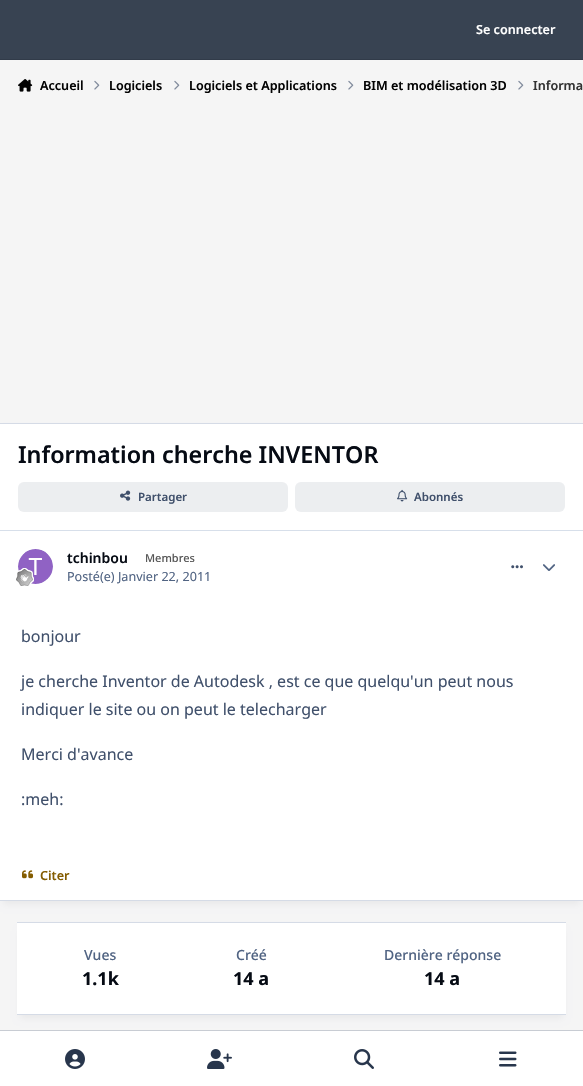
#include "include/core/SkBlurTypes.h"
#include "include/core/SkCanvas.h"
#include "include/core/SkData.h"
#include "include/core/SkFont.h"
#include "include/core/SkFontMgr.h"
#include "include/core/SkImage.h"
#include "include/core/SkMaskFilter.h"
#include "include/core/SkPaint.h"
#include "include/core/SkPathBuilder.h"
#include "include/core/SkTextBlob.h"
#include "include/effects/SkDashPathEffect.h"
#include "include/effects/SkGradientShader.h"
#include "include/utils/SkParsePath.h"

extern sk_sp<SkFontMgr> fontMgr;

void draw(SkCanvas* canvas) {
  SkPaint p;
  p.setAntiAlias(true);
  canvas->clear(SkColorSetRGB(245, 245, 245));
  p.setColor(SkColorSetRGB(56, 67, 82));
  canvas->drawRect(SkRect::MakeLTRB(0, 0, 583, 59), p);
  p.setColor(SkColorSetRGB(49, 59, 73));
  canvas->drawRect(SkRect::MakeLTRB(0, 59, 583, 60), p);
  canvas->drawImageRect(SkImages::DeferredFromEncodedData(SkData::MakeFromFileName("images/1.png")), SkRect::MakeLTRB(18, 79, 33, 92), SkSamplingOptions());
  canvas->drawImageRect(SkImages::DeferredFromEncodedData(SkData::MakeFromFileName("images/2.png")), SkRect::MakeLTRB(94, 80, 100, 90), SkSamplingOptions());
  canvas->drawImageRect(SkImages::DeferredFromEncodedData(SkData::MakeFromFileName("images/2.png")), SkRect::MakeLTRB(174, 80, 180, 90), SkSamplingOptions());
  canvas->drawImageRect(SkImages::DeferredFromEncodedData(SkData::MakeFromFileName("images/2.png")), SkRect::MakeLTRB(348, 80, 354, 90), SkSamplingOptions());
  canvas->drawImageRect(SkImages::DeferredFromEncodedData(SkData::MakeFromFileName("images/2.png")), SkRect::MakeLTRB(518, 80, 524, 90), SkSamplingOptions());
  p.setColor(SkColorSetARGB(13, 1, 3, 10));
  p.setMaskFilter(SkMaskFilter::MakeBlur(kNormal_SkBlurStyle, 3.5f));
  canvas->drawRect(SkRect::MakeLTRB(3, 432, 580, 904), p);
  p.setMaskFilter(nullptr);
  p.setColor(SK_ColorWHITE);
  canvas->drawRect(SkRect::MakeLTRB(0, 424, 583, 900), p);
  p.setColor(SkColorSetRGB(213, 219, 230));
  canvas->drawRect(SkRect::MakeLTRB(0, 423, 583, 424), p);
  canvas->drawRect(SkRect::MakeLTRB(0, 900, 583, 901), p);
  p.setColor(SkColorSetRGB(215, 223, 234));
  canvas->drawRect(SkRect::MakeLTRB(0, 530, 583, 531), p);
  p.setColor(SkColorSetRGB(236, 238, 240));
  canvas->drawRoundRect(SkRect::MakeLTRB(18, 482, 288, 512), 6, 6, p);
  canvas->drawImageRect(SkImages::DeferredFromEncodedData(SkData::MakeFromFileName("images/3.png")), SkRect::MakeLTRB(120, 490, 131, 501), SkSamplingOptions());
  canvas->drawRoundRect(SkRect::MakeLTRB(295, 482, 565, 512), 6, 6, p);
  canvas->drawImageRect(SkImages::DeferredFromEncodedData(SkData::MakeFromFileName("images/4.png")), SkRect::MakeLTRB(397, 489, 408, 502), SkSamplingOptions());
  p.setColor(SkColorSetRGB(229, 234, 242));
  canvas->drawCircle(35.5f, 566.5f, 17.5f, p);
  canvas->drawImageRect(SkImages::DeferredFromEncodedData(SkData::MakeFromFileName("images/5.png")), SkRect::MakeLTRB(18, 549, 53, 584), SkSamplingOptions());
  canvas->drawImageRect(SkImages::DeferredFromEncodedData(SkData::MakeFromFileName("images/6.png")), SkRect::MakeLTRB(16, 568, 34, 586), SkSamplingOptions());
  canvas->drawImageRect(SkImages::DeferredFromEncodedData(SkData::MakeFromFileName("images/7.png")), SkRect::MakeLTRB(511, 565, 523, 569), SkSamplingOptions());
  canvas->drawImageRect(SkImages::DeferredFromEncodedData(SkData::MakeFromFileName("images/8.png")), SkRect::MakeLTRB(543, 564, 555, 571), SkSamplingOptions());
  canvas->drawImageRect(SkImages::DeferredFromEncodedData(SkData::MakeFromFileName("images/9.png")), SkRect::MakeLTRB(22, 870, 34, 879), SkSamplingOptions());
  p.setColor(SkColorSetARGB(13, 1, 3, 10));
  p.setMaskFilter(SkMaskFilter::MakeBlur(kNormal_SkBlurStyle, 3.5f));
  canvas->drawRect(SkRect::MakeLTRB(20, 931, 563, 1018), p);
  p.setMaskFilter(nullptr);
  p.setColor(SK_ColorWHITE);
  canvas->drawRect(SkRect::MakeLTRB(17, 923, 566, 1014), p);
  p.setColor(SkColorSetRGB(213, 219, 230));
  canvas->drawRect(SkRect::MakeLTRB(17, 922, 566, 923), p);
  canvas->drawRect(SkRect::MakeLTRB(17, 1014, 566, 1015), p);
  p.setColor(SkColorSetRGB(200, 204, 211));
  canvas->drawRect(SkRect::MakeLTRB(0, 1030, 583, 1031), p);
  p.setColor(SK_ColorWHITE);
  canvas->drawRect(SkRect::MakeLTRB(0, 1031, 583, 1086), p);
  canvas->drawImageRect(SkImages::DeferredFromEncodedData(SkData::MakeFromFileName("images/10.png")), SkRect::MakeLTRB(65, 1049, 85, 1069), SkSamplingOptions());
  canvas->drawImageRect(SkImages::DeferredFromEncodedData(SkData::MakeFromFileName("images/11.png")), SkRect::MakeLTRB(207, 1049, 232, 1069), SkSamplingOptions());
  canvas->drawImageRect(SkImages::DeferredFromEncodedData(SkData::MakeFromFileName("images/12.png")), SkRect::MakeLTRB(354, 1049, 374, 1069), SkSamplingOptions());
  canvas->drawImageRect(SkImages::DeferredFromEncodedData(SkData::MakeFromFileName("images/13.png")), SkRect::MakeLTRB(499, 1051, 517, 1067), SkSamplingOptions());
  SkFont font1(fontMgr->matchFamilyStyle("Noto Sans", SkFontStyle(600, SkFontStyle::kNormal_Width, SkFontStyle::kUpright_Slant)), 12.6f);
  font1.setSubpixel(true);
  canvas->drawString("Se connecter", 476, 34, font1, p);
  p.setColor(SkColorSetRGB(3, 3, 3));
  canvas->drawString("Accueil", 40, 90, font1, p);
  canvas->drawString("Logiciels", 109, 90, font1, p);
  canvas->drawString("Logiciels et Applications", 189, 90, font1, p);
  canvas->drawString("BIM et modélisation 3D", 363, 90, font1, p);
  p.setColor(SkColorSetRGB(51, 51, 51));
  canvas->drawString("Informa", 533, 90, font1, p);
  SkFont font2(fontMgr->matchFamilyStyle("Noto Sans", SkFontStyle(600, SkFontStyle::kNormal_Width, SkFontStyle::kUpright_Slant)), 23.3f);
  font2.setSubpixel(true);
  p.setColor(SkColorSetRGB(6, 11, 20));
  canvas->drawString("Information cherche INVENTOR", 18, 463, font2, p);
  SkFont font3(fontMgr->matchFamilyStyle("Noto Sans", SkFontStyle(600, SkFontStyle::kNormal_Width, SkFontStyle::kUpright_Slant)), 11.5f);
  font3.setSubpixel(true);
  p.setColor(SkColorSetRGB(64, 80, 107));
  canvas->drawString("Partager", 138, 501, font3, p);
  canvas->drawString("Abonnés", 414, 501, font3, p);
  SkFont font4(fontMgr->matchFamilyStyle("Noto Sans", SkFontStyle(600, SkFontStyle::kNormal_Width, SkFontStyle::kUpright_Slant)), 14);
  font4.setSubpixel(true);
  p.setColor(SkColorSetRGB(6, 11, 20));
  canvas->drawString("tchinbou", 67, 563, font4, p);
  SkFont font5(fontMgr->matchFamilyStyle("Noto Sans", SkFontStyle(500, SkFontStyle::kNormal_Width, SkFontStyle::kUpright_Slant)), 11);
  font5.setSubpixel(true);
  p.setColor(SkColorSetRGB(87, 87, 87));
  canvas->drawString("Membres", 145, 562, font5, p);
  SkFont font6(fontMgr->matchFamilyStyle("Noto Sans", SkFontStyle::Normal()), 12.6f);
  font6.setSubpixel(true);
  p.setColor(SkColorSetRGB(81, 100, 131));
  canvas->drawString("Posté(e) Janvier 22, 2011", 67, 581, font6, p);
  SkFont font7(fontMgr->matchFamilyStyle("Noto Sans", SkFontStyle::Normal()), 16);
  font7.setSubpixel(true);
  p.setColor(SkColorSetRGB(64, 80, 107));
  canvas->drawString("bonjour", 21, 642, font7, p);
  canvas->drawString("je cherche Inventor de Autodesk , est ce que quelqu'un peut nous", 21, 687, font7, p);
  canvas->drawString("indiquer le site ou on peut le telecharger", 21, 715, font7, p);
  canvas->drawString("Merci d'avance", 21, 760, font7, p);
  canvas->drawString(":meh:", 21, 805, font7, p);
  p.setColor(SkColorSetRGB(132, 92, 0));
  canvas->drawString("Citer", 40, 880, font1, p);
  SkFont font8(fontMgr->matchFamilyStyle("Noto Sans", SkFontStyle(500, SkFontStyle::kNormal_Width, SkFontStyle::kUpright_Slant)), 14);
  font8.setSubpixel(true);
  p.setColor(SkColorSetRGB(81, 100, 131));
  canvas->drawString("Vues", 84, 960, font8, p);
  SkFont font9(fontMgr->matchFamilyStyle("Noto Sans", SkFontStyle::Bold()), 18);
  font9.setSubpixel(true);
  p.setColor(SkColorSetRGB(6, 11, 20));
  canvas->drawString("1.1k", 82, 985, font9, p);
  p.setColor(SkColorSetRGB(81, 100, 131));
  canvas->drawString("Créé", 236, 960, font8, p);
  p.setColor(SkColorSetRGB(6, 11, 20));
  canvas->drawString("14 a", 233, 985, font9, p);
  p.setColor(SkColorSetRGB(81, 100, 131));
  canvas->drawString("Dernière réponse", 384, 960, font8, p);
  p.setColor(SkColorSetRGB(6, 11, 20));
  canvas->drawString("14 a", 424, 985, font9, p);
}
